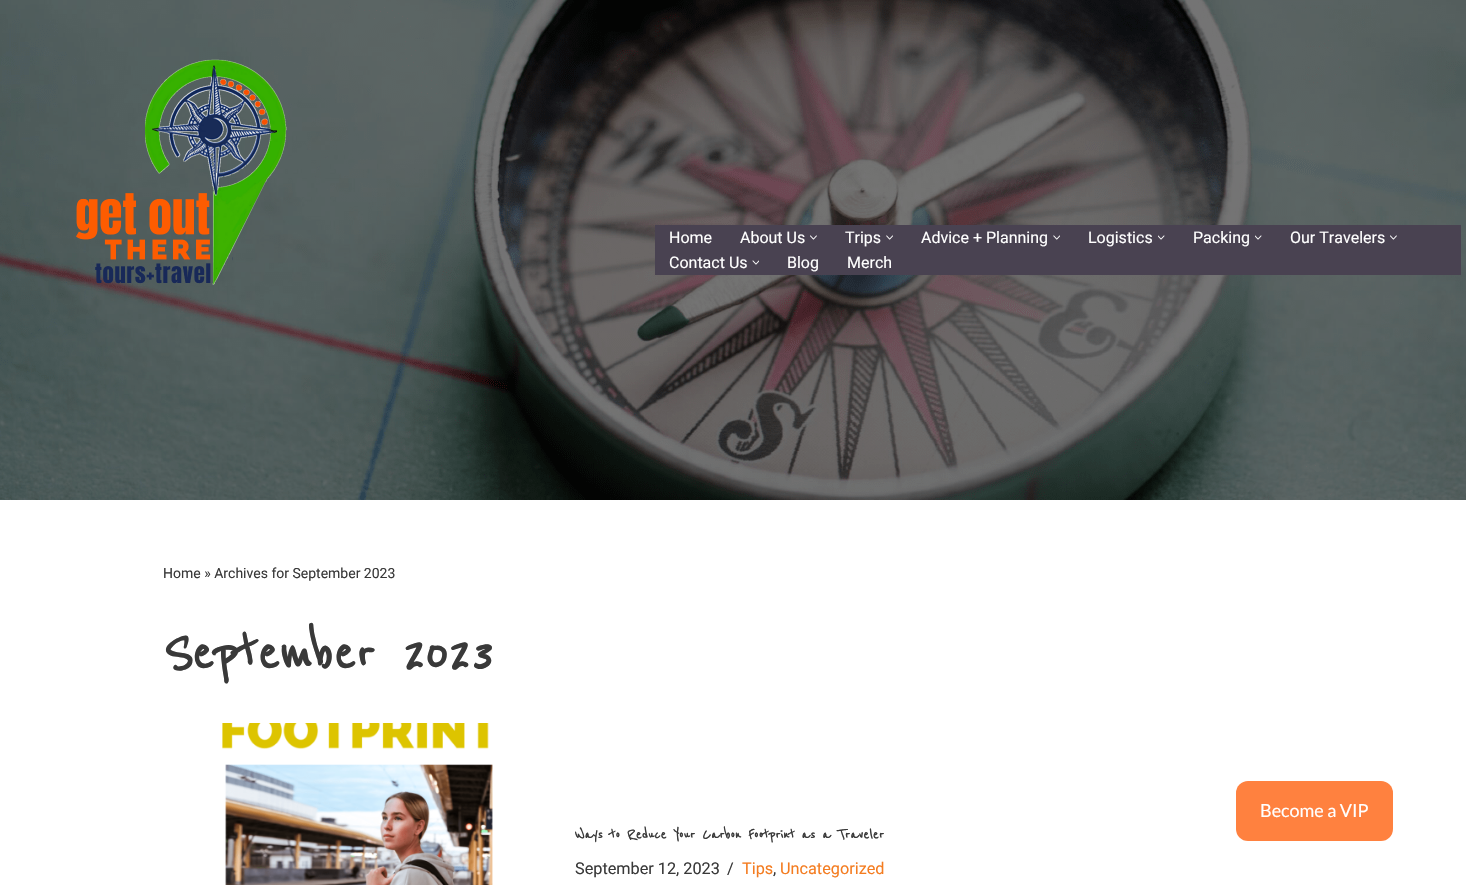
#include "include/core/SkBlurTypes.h"
#include "include/core/SkCanvas.h"
#include "include/core/SkData.h"
#include "include/core/SkFont.h"
#include "include/core/SkFontMgr.h"
#include "include/core/SkImage.h"
#include "include/core/SkMaskFilter.h"
#include "include/core/SkPaint.h"
#include "include/core/SkPathBuilder.h"
#include "include/core/SkTextBlob.h"
#include "include/effects/SkDashPathEffect.h"
#include "include/effects/SkGradientShader.h"
#include "include/utils/SkParsePath.h"

extern sk_sp<SkFontMgr> fontMgr;

void draw(SkCanvas* canvas) {
  SkPaint p;
  p.setAntiAlias(true);
  canvas->clear(SK_ColorWHITE);
  canvas->drawImageRect(SkImages::DeferredFromEncodedData(SkData::MakeFromFileName("images/1.png")), SkRect::MakeLTRB(0, 0, 1466, 500), SkSamplingOptions());
  canvas->drawImageRect(SkImages::DeferredFromEncodedData(SkData::MakeFromFileName("images/2.png")), SkRect::MakeLTRB(76, 59, 287, 285), SkSamplingOptions());
  p.setColor(SkColorSetRGB(73, 66, 81));
  canvas->drawRect(SkRect::MakeLTRB(655, 225, 1461, 275), p);
  canvas->drawImageRect(SkImages::DeferredFromEncodedData(SkData::MakeFromFileName("images/3.png")), SkRect::MakeLTRB(810, 235, 817, 240), SkSamplingOptions());
  canvas->drawImageRect(SkImages::DeferredFromEncodedData(SkData::MakeFromFileName("images/4.png")), SkRect::MakeLTRB(886, 235, 893, 240), SkSamplingOptions());
  canvas->drawImageRect(SkImages::DeferredFromEncodedData(SkData::MakeFromFileName("images/5.png")), SkRect::MakeLTRB(1053, 235, 1060, 240), SkSamplingOptions());
  canvas->drawImageRect(SkImages::DeferredFromEncodedData(SkData::MakeFromFileName("images/6.png")), SkRect::MakeLTRB(1158, 235, 1165, 240), SkSamplingOptions());
  canvas->drawImageRect(SkImages::DeferredFromEncodedData(SkData::MakeFromFileName("images/6.png")), SkRect::MakeLTRB(1255, 235, 1262, 240), SkSamplingOptions());
  canvas->drawImageRect(SkImages::DeferredFromEncodedData(SkData::MakeFromFileName("images/7.png")), SkRect::MakeLTRB(1390, 235, 1397, 240), SkSamplingOptions());
  canvas->drawImageRect(SkImages::DeferredFromEncodedData(SkData::MakeFromFileName("images/8.png")), SkRect::MakeLTRB(752, 260, 759, 265), SkSamplingOptions());
  canvas->drawImageRect(SkImages::DeferredFromEncodedData(SkData::MakeFromFileName("images/9.png")), SkRect::MakeLTRB(222, 723, 493, 885), SkSamplingOptions());
  p.setColor(SkColorSetRGB(255, 129, 63));
  canvas->drawRoundRect(SkRect::MakeLTRB(1236, 781, 1393, 841), 12, 12, p);
  SkFont font1(fontMgr->matchFamilyStyle("Roboto", SkFontStyle::Normal()), 16);
  font1.setSubpixel(true);
  p.setColor(SK_ColorWHITE);
  canvas->drawString("Home", 669, 243, font1, p);
  canvas->drawString("About Us", 740, 243, font1, p);
  canvas->drawString("Trips", 845, 243, font1, p);
  canvas->drawString("Advice + Planning", 921, 243, font1, p);
  canvas->drawString("Logistics", 1088, 243, font1, p);
  canvas->drawString("Packing", 1193, 243, font1, p);
  canvas->drawString("Our Travelers", 1290, 243, font1, p);
  canvas->drawString("Contact Us", 669, 268, font1, p);
  canvas->drawString("Blog", 787, 268, font1, p);
  canvas->drawString("Merch", 847, 268, font1, p);
  SkFont font2(fontMgr->matchFamilyStyle("Roboto", SkFontStyle::Normal()), 14);
  font2.setSubpixel(true);
  p.setColor(SkColorSetRGB(57, 57, 57));
  canvas->drawString("Home » Archives for September 2023", 163, 578, font2, p);
  SkFont font3(fontMgr->matchFamilyStyle("Reenie Beanie", SkFontStyle::Bold()), 63);
  font3.setSubpixel(true);
  canvas->drawString("September 2023", 163, 670, font3, p);
  SkFont font4(fontMgr->matchFamilyStyle("Reenie Beanie", SkFontStyle::Bold()), 17);
  font4.setSubpixel(true);
  canvas->drawString("Ways to Reduce Your Carbon Footprint as a Traveler", 575, 839, font4, p);
  SkFont font5(fontMgr->matchFamilyStyle("Roboto", SkFontStyle::Normal()), 16.25f);
  font5.setSubpixel(true);
  canvas->drawString("September 12, 2023", 575, 874, font5, p);
  canvas->drawString("/", 727, 874, font5, p);
  p.setColor(SkColorSetRGB(244, 124, 32));
  canvas->drawString("Tips", 742, 874, font5, p);
  p.setColor(SkColorSetRGB(57, 57, 57));
  canvas->drawString(",", 773, 874, font5, p);
  p.setColor(SkColorSetRGB(244, 124, 32));
  canvas->drawString("Uncategorized", 780, 874, font5, p);
  SkFont font6(fontMgr->matchFamilyStyle("Lato", SkFontStyle::Normal()), 18);
  font6.setSubpixel(true);
  p.setColor(SK_ColorWHITE);
  canvas->drawString("Become a VIP", 1260, 817, font6, p);
}
